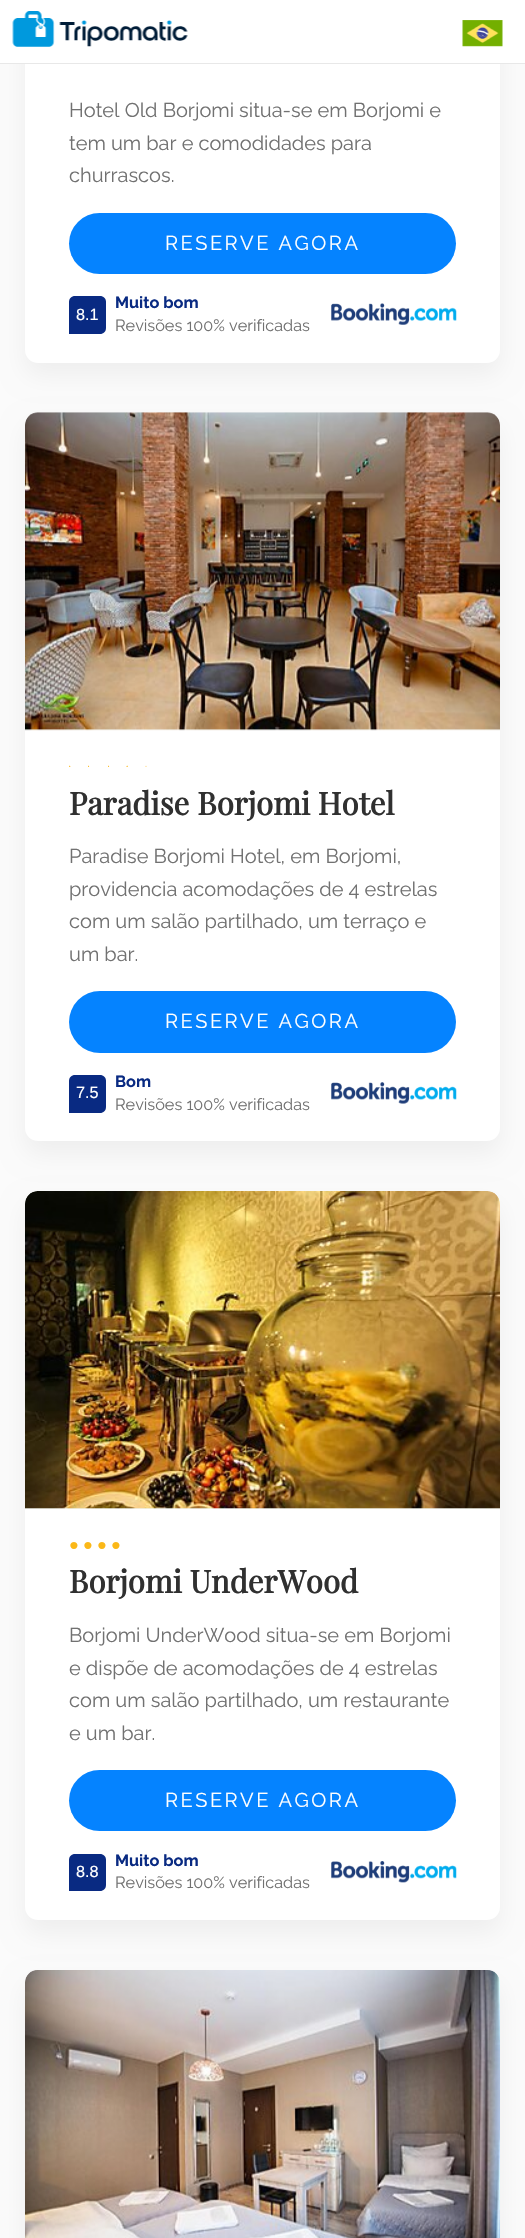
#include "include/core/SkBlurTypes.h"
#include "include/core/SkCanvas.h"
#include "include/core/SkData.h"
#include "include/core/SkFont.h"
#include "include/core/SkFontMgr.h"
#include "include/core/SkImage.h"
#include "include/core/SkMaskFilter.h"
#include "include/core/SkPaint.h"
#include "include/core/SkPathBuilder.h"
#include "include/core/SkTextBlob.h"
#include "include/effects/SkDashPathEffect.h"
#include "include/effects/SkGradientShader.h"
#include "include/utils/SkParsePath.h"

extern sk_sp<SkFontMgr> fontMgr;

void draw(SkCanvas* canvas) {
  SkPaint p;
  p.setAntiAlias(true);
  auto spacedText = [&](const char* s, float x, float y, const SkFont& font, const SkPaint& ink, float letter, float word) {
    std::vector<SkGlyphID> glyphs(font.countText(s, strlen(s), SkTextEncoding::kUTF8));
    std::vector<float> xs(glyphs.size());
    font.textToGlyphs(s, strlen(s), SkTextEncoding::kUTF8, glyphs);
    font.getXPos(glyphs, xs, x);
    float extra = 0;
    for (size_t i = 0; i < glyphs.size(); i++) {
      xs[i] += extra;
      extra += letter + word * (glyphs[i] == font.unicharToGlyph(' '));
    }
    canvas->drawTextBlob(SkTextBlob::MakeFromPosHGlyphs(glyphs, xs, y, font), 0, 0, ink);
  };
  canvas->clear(SkColorSetRGB(251, 251, 251));
  p.setColor(SkColorSetRGB(238, 238, 238));
  p.setMaskFilter(SkMaskFilter::MakeBlur(kNormal_SkBlurStyle, 12.5f));
  canvas->drawRoundRect(SkRect::MakeLTRB(25, -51, 500, 375), 13, 13, p);
  p.setMaskFilter(nullptr);
  p.setColor(SK_ColorWHITE);
  canvas->drawRoundRect(SkRect::MakeLTRB(25, -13, 500, 363), 13, 13, p);
  canvas->drawRect(SkRect::MakeLTRB(0, 0, 525, 63), p);
  p.setColor(SkColorSetRGB(232, 232, 232));
  canvas->drawRect(SkRect::MakeLTRB(0, 63, 525, 64), p);
  canvas->drawImageRect(SkImages::DeferredFromEncodedData(SkData::MakeFromFileName("images/1.png")), SkRect::MakeLTRB(12, 11, 188, 47), SkSamplingOptions());
  canvas->drawImageRect(SkImages::DeferredFromEncodedData(SkData::MakeFromFileName("images/2.png")), SkRect::MakeLTRB(462, 20, 503, 47), SkSamplingOptions());
  p.setColor(SkColorSetRGB(5, 131, 255));
  canvas->drawRoundRect(SkRect::MakeLTRB(69, 213, 456, 274), 30.5f, 30.5f, p);
  p.setColor(SkColorSetRGB(9, 42, 130));
  canvas->drawPath(SkPathBuilder().moveTo(75, 296).lineTo(100, 296).cubicTo(103.5f, 296, 106, 298.5f, 106, 302).lineTo(106, 328).cubicTo(106, 331.5f, 103.5f, 334, 100, 334).lineTo(69, 334).lineTo(69, 302).cubicTo(69, 298.5f, 71.5f, 296, 75, 296).close().detach(), p);
  canvas->drawImageRect(SkImages::DeferredFromEncodedData(SkData::MakeFromFileName("images/3.png")), SkRect::MakeLTRB(331, 303, 457, 325), SkSamplingOptions());
  p.setColor(SkColorSetRGB(238, 238, 238));
  p.setMaskFilter(SkMaskFilter::MakeBlur(kNormal_SkBlurStyle, 12.5f));
  canvas->drawRoundRect(SkRect::MakeLTRB(25, 425, 500, 1154), 13, 13, p);
  p.setMaskFilter(nullptr);
  p.setColor(SK_ColorWHITE);
  canvas->drawRoundRect(SkRect::MakeLTRB(25, 413, 500, 1141), 13, 13, p);
  p.setColor(SkColorSetRGB(241, 243, 237));
  canvas->drawPath(SkPathBuilder().moveTo(38, 413).lineTo(487, 413).cubicTo(494, 413, 500, 419, 500, 426).lineTo(500, 730).lineTo(25, 730).lineTo(25, 426).cubicTo(25, 419, 31, 413, 38, 413).close().detach(), p);
  canvas->drawImageRect(SkImages::DeferredFromEncodedData(SkData::MakeFromFileName("images/4.png")), SkRect::MakeLTRB(25, 412, 500, 731), SkSamplingOptions());
  canvas->drawImageRect(SkImages::DeferredFromEncodedData(SkData::MakeFromFileName("images/5.png")), SkRect::MakeLTRB(69, 765, 71, 767), SkSamplingOptions());
  canvas->drawImageRect(SkImages::DeferredFromEncodedData(SkData::MakeFromFileName("images/6.png")), SkRect::MakeLTRB(88, 765, 90, 767), SkSamplingOptions());
  canvas->drawImageRect(SkImages::DeferredFromEncodedData(SkData::MakeFromFileName("images/6.png")), SkRect::MakeLTRB(108, 765, 110, 767), SkSamplingOptions());
  canvas->drawImageRect(SkImages::DeferredFromEncodedData(SkData::MakeFromFileName("images/7.png")), SkRect::MakeLTRB(126, 765, 128, 767), SkSamplingOptions());
  canvas->drawImageRect(SkImages::DeferredFromEncodedData(SkData::MakeFromFileName("images/8.png")), SkRect::MakeLTRB(145, 765, 147, 767), SkSamplingOptions());
  p.setColor(SkColorSetRGB(5, 131, 255));
  canvas->drawRoundRect(SkRect::MakeLTRB(69, 991, 456, 1053), 31, 31, p);
  p.setColor(SkColorSetRGB(9, 42, 130));
  canvas->drawPath(SkPathBuilder().moveTo(75, 1075).lineTo(100, 1075).cubicTo(103.5f, 1075, 106, 1077.5f, 106, 1081).lineTo(106, 1107).cubicTo(106, 1110.5f, 103.5f, 1113, 100, 1113).lineTo(69, 1113).lineTo(69, 1081).cubicTo(69, 1077.5f, 71.5f, 1075, 75, 1075).close().detach(), p);
  canvas->drawImageRect(SkImages::DeferredFromEncodedData(SkData::MakeFromFileName("images/9.png")), SkRect::MakeLTRB(331, 1082, 457, 1104), SkSamplingOptions());
  p.setColor(SkColorSetRGB(238, 238, 238));
  p.setMaskFilter(SkMaskFilter::MakeBlur(kNormal_SkBlurStyle, 12.5f));
  canvas->drawRoundRect(SkRect::MakeLTRB(25, 1204, 500, 1933), 13, 13, p);
  p.setMaskFilter(nullptr);
  p.setColor(SK_ColorWHITE);
  canvas->drawRoundRect(SkRect::MakeLTRB(25, 1191, 500, 1920), 13, 13, p);
  p.setColor(SkColorSetRGB(241, 243, 237));
  canvas->drawPath(SkPathBuilder().moveTo(38, 1191).lineTo(487, 1191).cubicTo(494, 1191, 500, 1197, 500, 1204).lineTo(500, 1509).lineTo(25, 1509).lineTo(25, 1204).cubicTo(25, 1197, 31, 1191, 38, 1191).close().detach(), p);
  canvas->drawImageRect(SkImages::DeferredFromEncodedData(SkData::MakeFromFileName("images/10.png")), SkRect::MakeLTRB(25, 1191, 500, 1509), SkSamplingOptions());
  p.setColor(SkColorSetRGB(5, 131, 255));
  canvas->drawRoundRect(SkRect::MakeLTRB(69, 1770, 456, 1831), 30.5f, 30.5f, p);
  p.setColor(SkColorSetRGB(9, 42, 130));
  canvas->drawPath(SkPathBuilder().moveTo(75, 1854).lineTo(100, 1854).cubicTo(103.5f, 1854, 106, 1856.5f, 106, 1860).lineTo(106, 1885).cubicTo(106, 1888.5f, 103.5f, 1891, 100, 1891).lineTo(69, 1891).lineTo(69, 1860).cubicTo(69, 1856.5f, 71.5f, 1854, 75, 1854).close().detach(), p);
  canvas->drawImageRect(SkImages::DeferredFromEncodedData(SkData::MakeFromFileName("images/11.png")), SkRect::MakeLTRB(331, 1861, 457, 1883), SkSamplingOptions());
  p.setColor(SkColorSetRGB(238, 238, 238));
  p.setMaskFilter(SkMaskFilter::MakeBlur(kNormal_SkBlurStyle, 12.5f));
  canvas->drawRoundRect(SkRect::MakeLTRB(25, 1983, 500, 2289), 13, 13, p);
  p.setMaskFilter(nullptr);
  canvas->drawImageRect(SkImages::DeferredFromEncodedData(SkData::MakeFromFileName("images/12.png")), SkRect::MakeLTRB(25, 1970, 500, 2238), SkSamplingOptions());
  SkFont font1(fontMgr->matchFamilyStyle("Raleway", SkFontStyle::Normal()), 20);
  font1.setSubpixel(true);
  p.setColor(SkColorSetRGB(113, 113, 113));
  canvas->drawString("Hotel Old Borjomi situa-se em Borjomi e", 69, 117, font1, p);
  canvas->drawString("tem um bar e comodidades para", 69, 150, font1, p);
  canvas->drawString("churrascos.", 69, 182, font1, p);
  p.setColor(SK_ColorWHITE);
  spacedText("RESERVE AGORA", 165, 250, font1, p, 2.5f, 0);
  SkFont font2(fontMgr->matchFamilyStyle("Liberation Sans", SkFontStyle::Normal()), 16.25f);
  font2.setSubpixel(true);
  canvas->drawString("8.1", 76, 320, font2, p);
  SkFont font3(fontMgr->matchFamilyStyle("Raleway", SkFontStyle::Bold()), 16.25f);
  font3.setSubpixel(true);
  p.setColor(SkColorSetRGB(9, 42, 130));
  canvas->drawString("Muito bom", 115, 308, font3, p);
  SkFont font4(fontMgr->matchFamilyStyle("Raleway", SkFontStyle::Normal()), 16.25f);
  font4.setSubpixel(true);
  p.setColor(SkColorSetRGB(113, 113, 113));
  canvas->drawString("Revisões 100% verificadas", 115, 331, font4, p);
  SkFont font5(fontMgr->matchFamilyStyle("Playfair Display", SkFontStyle::Bold()), 31.25f);
  font5.setSubpixel(true);
  p.setColor(SkColorSetRGB(48, 48, 48));
  canvas->drawString("Paradise Borjomi Hotel", 69, 815, font5, p);
  p.setColor(SkColorSetRGB(113, 113, 113));
  canvas->drawString("Paradise Borjomi Hotel, em Borjomi,", 69, 863, font1, p);
  canvas->drawString("providencia acomodações de 4 estrelas", 69, 896, font1, p);
  canvas->drawString("com um salão partilhado, um terraço e", 69, 928, font1, p);
  canvas->drawString("um bar.", 69, 961, font1, p);
  p.setColor(SK_ColorWHITE);
  spacedText("RESERVE AGORA", 165, 1028, font1, p, 2.5f, 0);
  canvas->drawString("7.5", 76, 1098, font2, p);
  p.setColor(SkColorSetRGB(9, 42, 130));
  canvas->drawString("Bom", 115, 1087, font3, p);
  p.setColor(SkColorSetRGB(113, 113, 113));
  canvas->drawString("Revisões 100% verificadas", 115, 1110, font4, p);
  p.setColor(SkColorSetRGB(251, 184, 24));
  canvas->drawString("●", 69, 1550, font2, p);
  canvas->drawString("●", 83, 1550, font2, p);
  canvas->drawString("●", 97, 1550, font2, p);
  canvas->drawString("●", 111, 1550, font2, p);
  p.setColor(SkColorSetRGB(48, 48, 48));
  canvas->drawString("Borjomi UnderWood", 69, 1593, font5, p);
  p.setColor(SkColorSetRGB(113, 113, 113));
  canvas->drawString("Borjomi UnderWood situa-se em Borjomi", 69, 1642, font1, p);
  canvas->drawString("e dispõe de acomodações de 4 estrelas", 69, 1675, font1, p);
  canvas->drawString("com um salão partilhado, um restaurante", 69, 1707, font1, p);
  canvas->drawString("e um bar.", 69, 1740, font1, p);
  p.setColor(SK_ColorWHITE);
  spacedText("RESERVE AGORA", 165, 1807, font1, p, 2.5f, 0);
  canvas->drawString("8.8", 76, 1877, font2, p);
  p.setColor(SkColorSetRGB(9, 42, 130));
  canvas->drawString("Muito bom", 115, 1866, font3, p);
  p.setColor(SkColorSetRGB(113, 113, 113));
  canvas->drawString("Revisões 100% verificadas", 115, 1888, font4, p);
}
